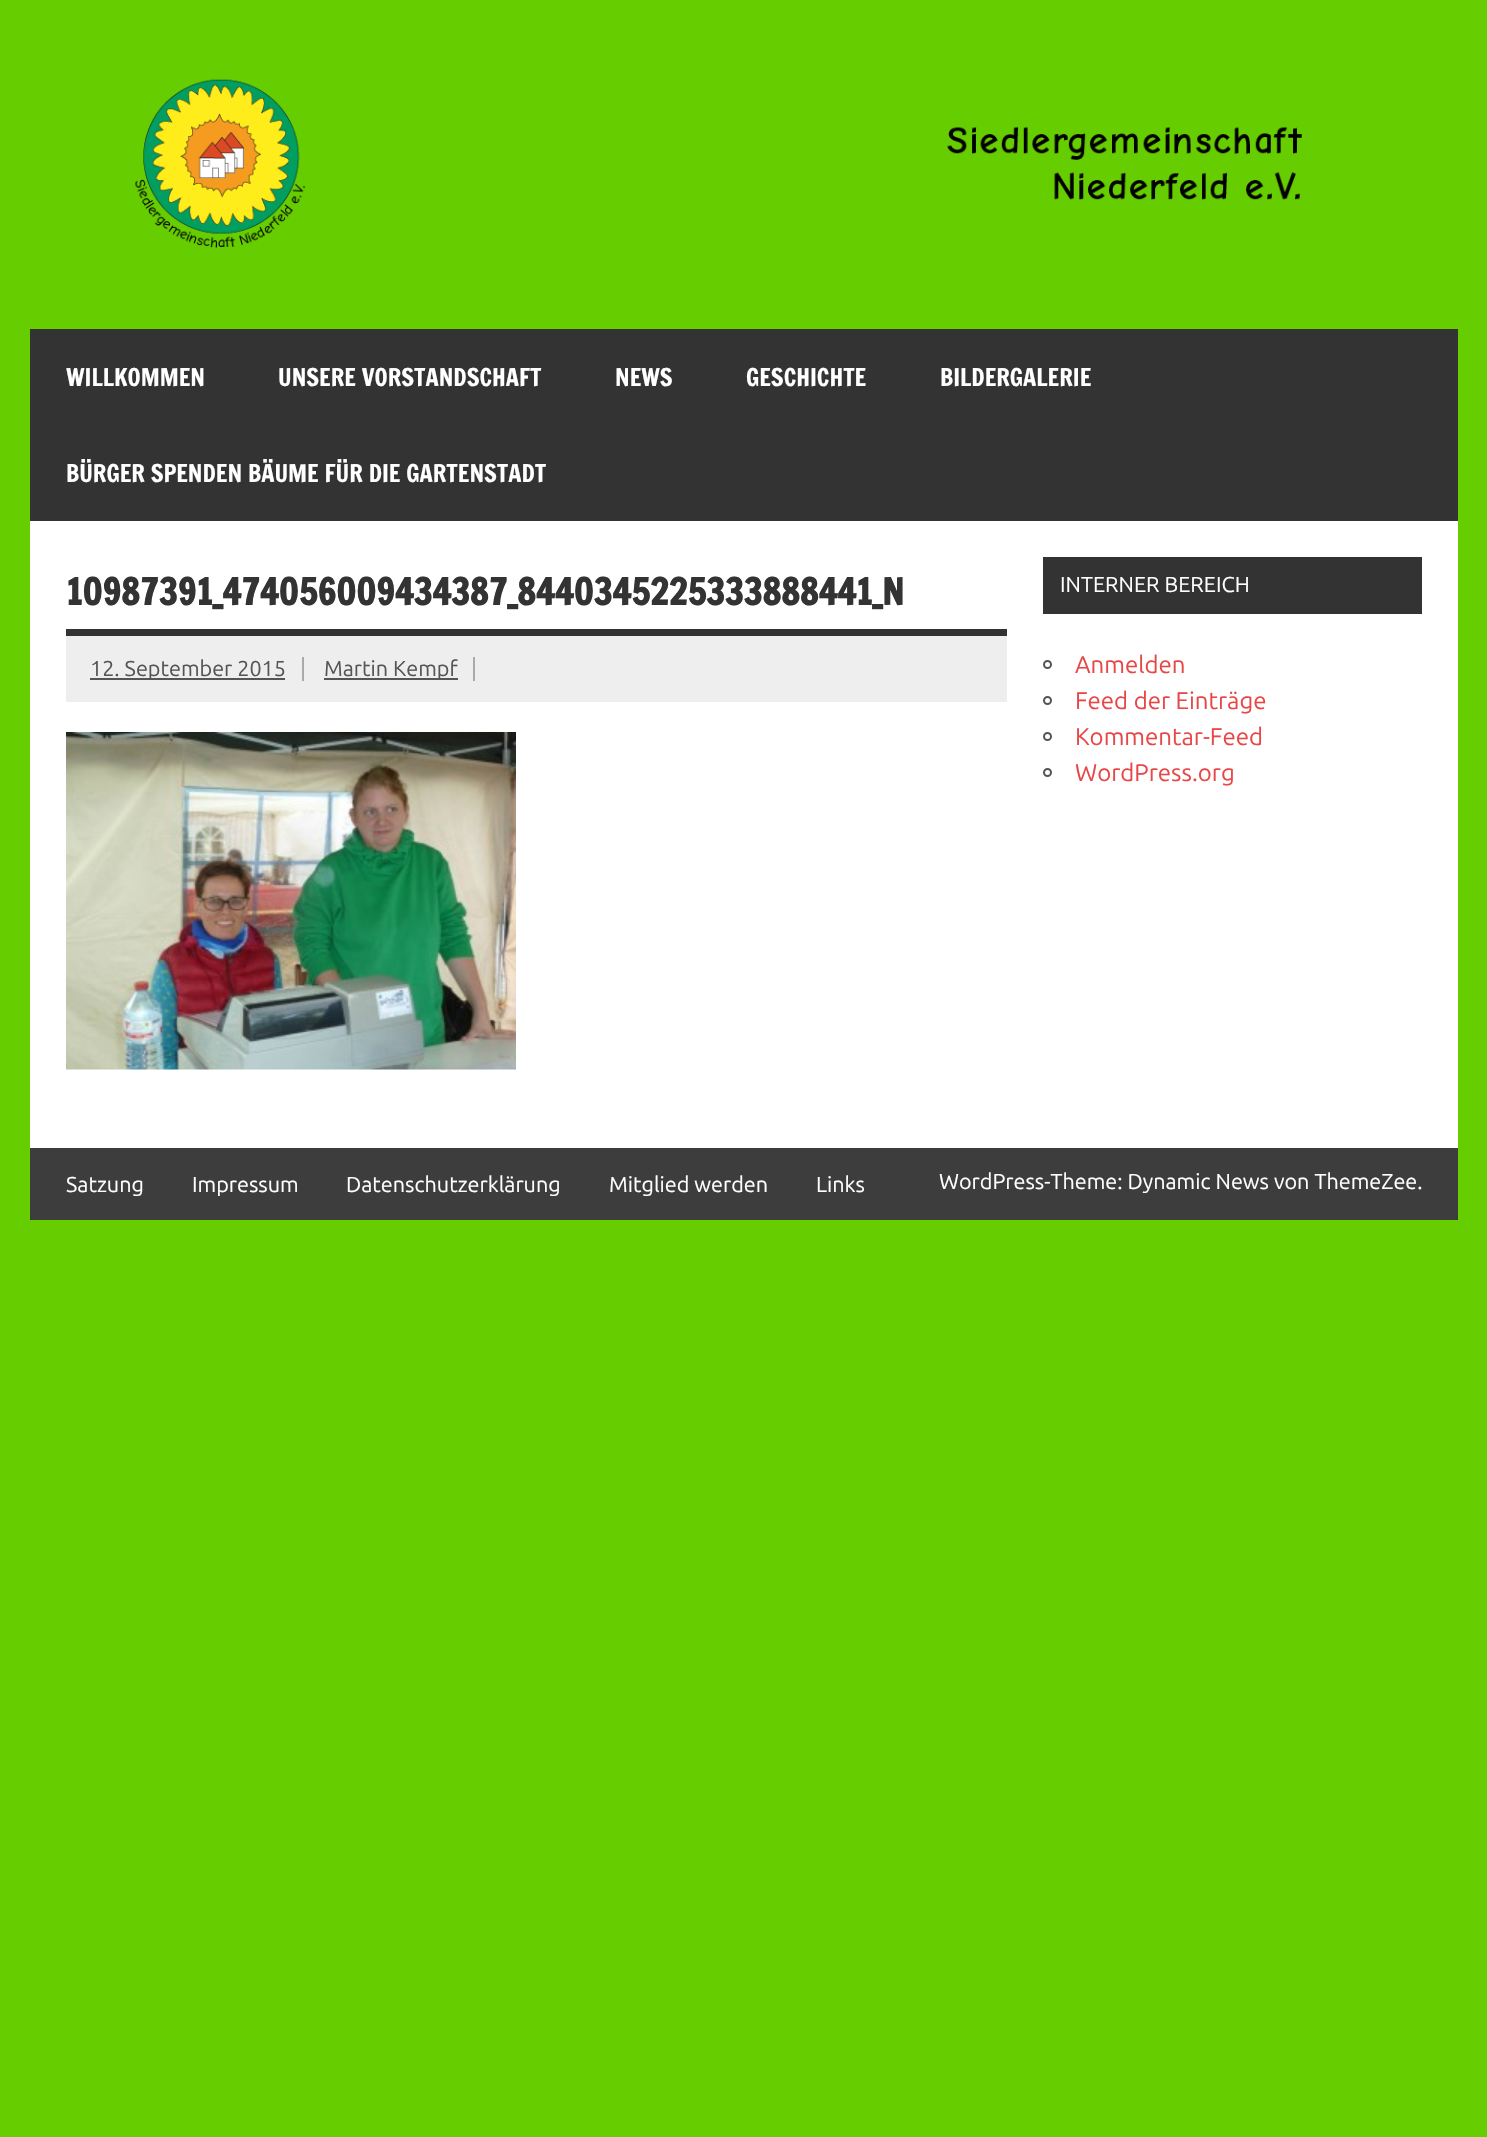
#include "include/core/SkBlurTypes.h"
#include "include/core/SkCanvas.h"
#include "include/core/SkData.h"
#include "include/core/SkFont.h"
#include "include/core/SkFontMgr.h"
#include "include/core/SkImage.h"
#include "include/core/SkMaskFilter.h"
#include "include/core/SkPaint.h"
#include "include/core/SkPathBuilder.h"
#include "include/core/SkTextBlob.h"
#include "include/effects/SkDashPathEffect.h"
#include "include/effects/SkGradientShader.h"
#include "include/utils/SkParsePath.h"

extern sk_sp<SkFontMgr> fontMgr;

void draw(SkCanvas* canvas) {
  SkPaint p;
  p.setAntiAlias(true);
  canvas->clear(SkColorSetRGB(102, 205, 0));
  p.setColor(SK_ColorWHITE);
  canvas->drawRect(SkRect::MakeLTRB(30, 521, 1458, 1148), p);
  canvas->drawImageRect(SkImages::DeferredFromEncodedData(SkData::MakeFromFileName("images/1.png")), SkRect::MakeLTRB(135, 79, 1302, 248), SkSamplingOptions());
  p.setColor(SkColorSetRGB(51, 51, 51));
  canvas->drawRect(SkRect::MakeLTRB(30, 329, 1458, 521), p);
  canvas->drawRect(SkRect::MakeLTRB(66, 629, 1007, 636), p);
  p.setColor(SkColorSetRGB(238, 238, 238));
  canvas->drawRect(SkRect::MakeLTRB(66, 636, 1007, 702), p);
  p.setColor(SkColorSetRGB(170, 170, 170));
  canvas->drawRect(SkRect::MakeLTRB(302, 657, 304, 681), p);
  p.setColor(SkColorSetRGB(85, 85, 85));
  canvas->drawRect(SkRect::MakeLTRB(90, 678, 285, 680), p);
  p.setColor(SkColorSetRGB(170, 170, 170));
  canvas->drawRect(SkRect::MakeLTRB(473, 657, 475, 681), p);
  p.setColor(SkColorSetRGB(85, 85, 85));
  canvas->drawRect(SkRect::MakeLTRB(324, 678, 458, 680), p);
  canvas->drawImageRect(SkImages::DeferredFromEncodedData(SkData::MakeFromFileName("images/2.png")), SkRect::MakeLTRB(66, 732, 516, 1070), SkSamplingOptions());
  p.setColor(SkColorSetRGB(51, 51, 51));
  canvas->drawRect(SkRect::MakeLTRB(1043, 557, 1422, 614), p);
  p.setStyle(SkPaint::kStroke_Style);
  p.setStrokeWidth(2);
  p.setColor(SkColorSetRGB(85, 85, 85));
  canvas->drawCircle(1047.5f, 664.5f, 3.5f, p);
  canvas->drawCircle(1047.5f, 700.5f, 3.5f, p);
  canvas->drawCircle(1047.5f, 736.5f, 3.5f, p);
  canvas->drawCircle(1047.5f, 772.5f, 3.5f, p);
  p.setStyle(SkPaint::kFill_Style);
  p.setColor(SkColorSetRGB(61, 61, 61));
  canvas->drawRect(SkRect::MakeLTRB(30, 1148, 1458, 1220), p);
  SkFont font1(fontMgr->matchFamilyStyle("Francois One", SkFontStyle::Normal()), 24);
  font1.setSubpixel(true);
  p.setColor(SK_ColorWHITE);
  canvas->drawString("WILLKOMMEN", 66, 386, font1, p);
  canvas->drawString("UNSERE VORSTANDSCHAFT", 278, 386, font1, p);
  canvas->drawString("NEWS", 615, 386, font1, p);
  canvas->drawString("GESCHICHTE", 746, 386, font1, p);
  canvas->drawString("BILDERGALERIE", 940, 386, font1, p);
  canvas->drawString("BÜRGER SPENDEN BÄUME FÜR DIE GARTENSTADT", 66, 482, font1, p);
  SkFont font2(fontMgr->matchFamilyStyle("Francois One", SkFontStyle::Bold()), 36);
  font2.setSubpixel(true);
  p.setColor(SkColorSetRGB(51, 51, 51));
  canvas->drawString("10987391_474056009434387_8440345225333888441_N", 66, 605, font2, p);
  SkFont font3(fontMgr->matchFamilyStyle("Ubuntu", SkFontStyle::Normal()), 21.6f);
  font3.setSubpixel(true);
  p.setColor(SkColorSetRGB(85, 85, 85));
  canvas->drawString("12. September 2015", 90, 676, font3, p);
  canvas->drawString("Martin Kempf", 324, 676, font3, p);
  p.setColor(SK_ColorWHITE);
  canvas->drawString("INTERNER BEREICH", 1060, 592, font3, p);
  SkFont font4(fontMgr->matchFamilyStyle("Ubuntu", SkFontStyle::Normal()), 24);
  font4.setSubpixel(true);
  p.setColor(SkColorSetRGB(232, 71, 71));
  canvas->drawString("Anmelden", 1075, 673, font4, p);
  canvas->drawString("Feed der Einträge", 1075, 709, font4, p);
  canvas->drawString("Kommentar-Feed", 1075, 745, font4, p);
  canvas->drawString("WordPress.org", 1075, 781, font4, p);
  p.setColor(SK_ColorWHITE);
  canvas->drawString("Satzung", 66, 1192, font3, p);
  canvas->drawString("Impressum", 192, 1192, font3, p);
  canvas->drawString("Datenschutzerklärung", 346, 1192, font3, p);
  canvas->drawString("Mitglied werden", 609, 1192, font3, p);
  canvas->drawString("Links", 816, 1192, font3, p);
  canvas->drawString("WordPress-Theme: Dynamic News von ThemeZee.", 939, 1189, font3, p);
}
